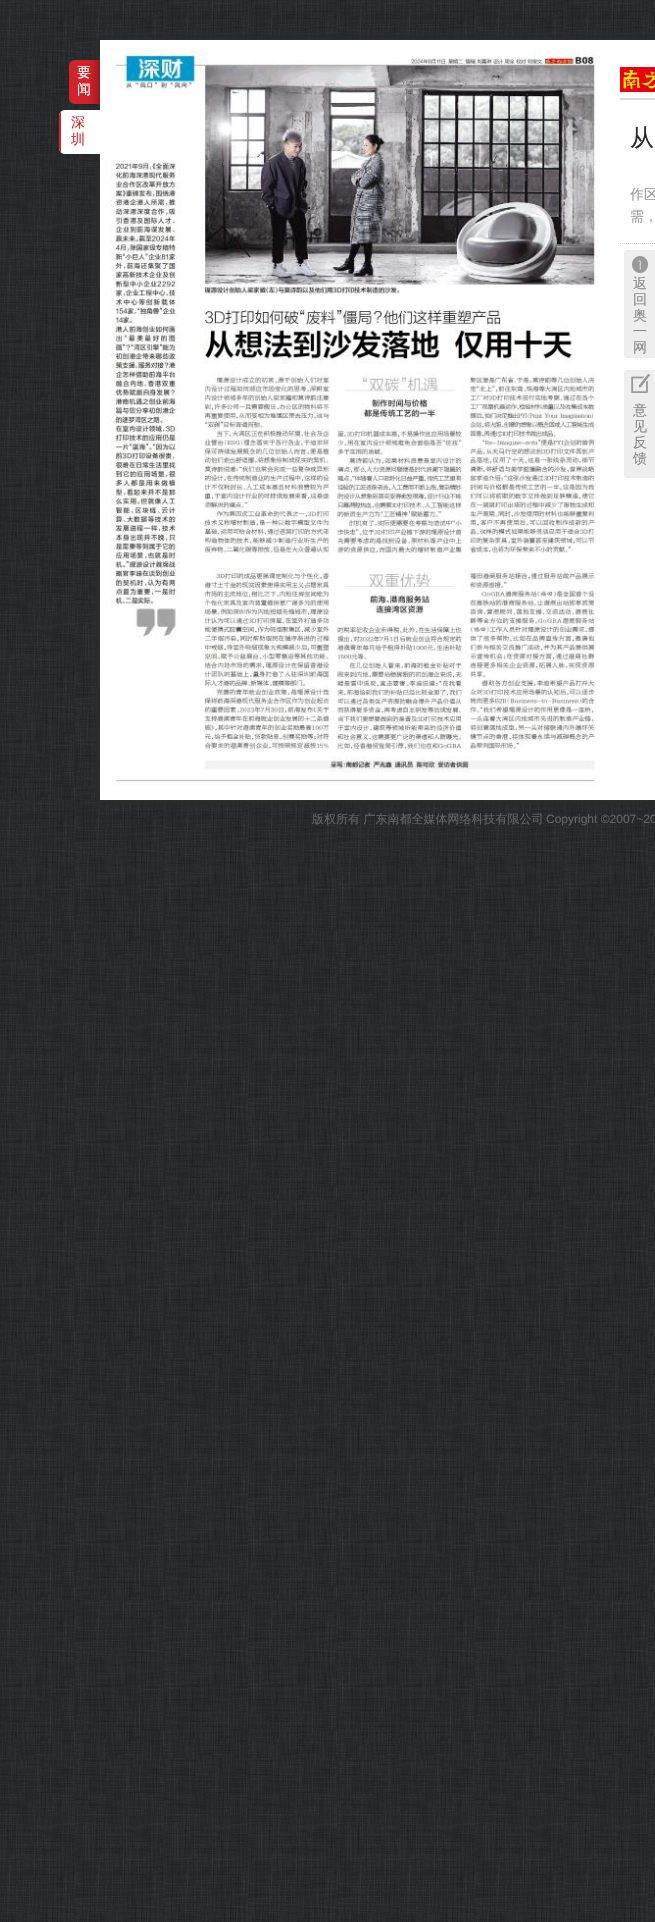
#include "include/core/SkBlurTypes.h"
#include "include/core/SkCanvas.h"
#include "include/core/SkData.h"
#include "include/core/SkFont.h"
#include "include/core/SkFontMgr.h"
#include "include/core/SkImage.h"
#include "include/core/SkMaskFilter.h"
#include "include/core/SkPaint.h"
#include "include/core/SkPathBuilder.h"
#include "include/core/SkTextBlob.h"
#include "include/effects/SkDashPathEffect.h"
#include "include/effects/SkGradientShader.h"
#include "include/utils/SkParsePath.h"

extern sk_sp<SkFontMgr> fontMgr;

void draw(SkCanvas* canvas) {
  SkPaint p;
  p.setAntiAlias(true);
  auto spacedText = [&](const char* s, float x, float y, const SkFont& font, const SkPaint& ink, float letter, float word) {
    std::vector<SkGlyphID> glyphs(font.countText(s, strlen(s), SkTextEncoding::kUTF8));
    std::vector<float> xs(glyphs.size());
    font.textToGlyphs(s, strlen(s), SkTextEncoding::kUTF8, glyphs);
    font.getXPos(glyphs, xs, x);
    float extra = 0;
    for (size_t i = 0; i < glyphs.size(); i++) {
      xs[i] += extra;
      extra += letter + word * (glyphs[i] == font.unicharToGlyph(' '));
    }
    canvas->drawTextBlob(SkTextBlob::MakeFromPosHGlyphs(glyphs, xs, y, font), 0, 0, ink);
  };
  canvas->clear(SK_ColorWHITE);
  canvas->drawImageRect(SkImages::DeferredFromEncodedData(SkData::MakeFromFileName("images/1.png")), SkRect::MakeLTRB(0, 0, 655, 1922), SkSamplingOptions());
  p.setColor(SkColorSetRGB(17, 17, 17));
  p.setMaskFilter(SkMaskFilter::MakeBlur(kNormal_SkBlurStyle, 4));
  canvas->drawRect(SkRect::MakeLTRB(101, 39, 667, 799), p);
  p.setMaskFilter(nullptr);
  p.setMaskFilter(SkMaskFilter::MakeBlur(kNormal_SkBlurStyle, 4));
  canvas->drawRect(SkRect::MakeLTRB(101, 41, 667, 801), p);
  p.setMaskFilter(nullptr);
  p.setColor(SkColorSetRGB(51, 51, 51));
  p.setMaskFilter(SkMaskFilter::MakeBlur(kNormal_SkBlurStyle, 5));
  canvas->drawRect(SkRect::MakeLTRB(101, 39, 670, 799), p);
  p.setMaskFilter(nullptr);
  p.setMaskFilter(SkMaskFilter::MakeBlur(kNormal_SkBlurStyle, 4));
  canvas->drawRect(SkRect::MakeLTRB(99, 41, 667, 801), p);
  p.setMaskFilter(nullptr);
  canvas->drawImageRect(SkImages::DeferredFromEncodedData(SkData::MakeFromFileName("images/2.png")), SkRect::MakeLTRB(69, 60, 100, 104), SkSamplingOptions());
  canvas->drawImageRect(SkImages::DeferredFromEncodedData(SkData::MakeFromFileName("images/3.png")), SkRect::MakeLTRB(59, 110, 100, 154), SkSamplingOptions());
  p.setColor(SK_ColorWHITE);
  canvas->drawRect(SkRect::MakeLTRB(100, 40, 655, 800), p);
  canvas->drawImageRect(SkImages::DeferredFromEncodedData(SkData::MakeFromFileName("images/4.png")), SkRect::MakeLTRB(110, 50, 596, 786), SkSamplingOptions());
  p.setColor(SkColorSetRGB(219, 219, 219));
  canvas->drawRect(SkRect::MakeLTRB(620, 98, 655, 100), p);
  canvas->drawImageRect(SkImages::DeferredFromEncodedData(SkData::MakeFromFileName("images/5.png")), SkRect::MakeLTRB(620, 67, 655, 92), SkSamplingOptions());
  p.setStyle(SkPaint::kStroke_Style);
  p.setStrokeWidth(1);
  p.setColor(SkColorSetRGB(204, 204, 204));
  p.setPathEffect(SkDashPathEffect::Make({{1, 1}}, 0));
  canvas->drawPath(SkPathBuilder().moveTo(620, 243.5f).lineTo(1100, 243.5f).detach(), p);
  p.setPathEffect(nullptr);
  canvas->drawImageRect(SkImages::DeferredFromEncodedData(SkData::MakeFromFileName("images/6.png")), SkRect::MakeLTRB(624, 250, 655, 358), SkSamplingOptions());
  canvas->drawImageRect(SkImages::DeferredFromEncodedData(SkData::MakeFromFileName("images/7.png")), SkRect::MakeLTRB(624, 370, 655, 478), SkSamplingOptions());
  SkFont font1(fontMgr->matchFamilyStyle("WenQuanYi Zen Hei", SkFontStyle(500, SkFontStyle::kNormal_Width, SkFontStyle::kUpright_Slant)), 14);
  font1.setSubpixel(true);
  p.setStyle(SkPaint::kFill_Style);
  p.setColor(SK_ColorWHITE);
  canvas->drawString("要", 77, 77, font1, p);
  canvas->drawString("闻", 77, 94, font1, p);
  p.setColor(SkColorSetRGB(209, 35, 42));
  canvas->drawString("深", 71, 127, font1, p);
  canvas->drawString("圳", 71, 144, font1, p);
  SkFont font2(fontMgr->matchFamilyStyle("WenQuanYi Zen Hei", SkFontStyle(500, SkFontStyle::kNormal_Width, SkFontStyle::kUpright_Slant)), 24);
  font2.setSubpixel(true);
  p.setColor(SkColorSetRGB(43, 43, 43));
  spacedText("从", 630, 146, font2, p, 0, -1);
  p.setColor(SkColorSetRGB(153, 153, 153));
  canvas->drawString("作区", 630, 199, font1, p);
  canvas->drawString("需，", 630, 221, font1, p);
  p.setColor(SkColorSetRGB(136, 136, 136));
  canvas->drawString("返", 633, 288, font1, p);
  canvas->drawString("回", 633, 304, font1, p);
  canvas->drawString("奥", 633, 320, font1, p);
  canvas->drawString("一", 633, 336, font1, p);
  canvas->drawString("网", 633, 352, font1, p);
  canvas->drawString("意", 633, 415, font1, p);
  canvas->drawString("见", 633, 431, font1, p);
  canvas->drawString("反", 633, 447, font1, p);
  canvas->drawString("馈", 633, 463, font1, p);
  SkFont font3(fontMgr->matchFamilyStyle("WenQuanYi Zen Hei", SkFontStyle(500, SkFontStyle::kNormal_Width, SkFontStyle::kUpright_Slant)), 12);
  font3.setSubpixel(true);
  p.setColor(SkColorSetRGB(102, 102, 102));
  canvas->drawString("版权所有 广东南都全媒体网络科技有限公司", 312, 823, font3, p);
  SkFont font4(fontMgr->matchFamilyStyle("Liberation Sans", SkFontStyle::Normal()), 12);
  font4.setSubpixel(true);
  canvas->drawString("Copyright ©2007~20", 546, 823, font4, p);
}
